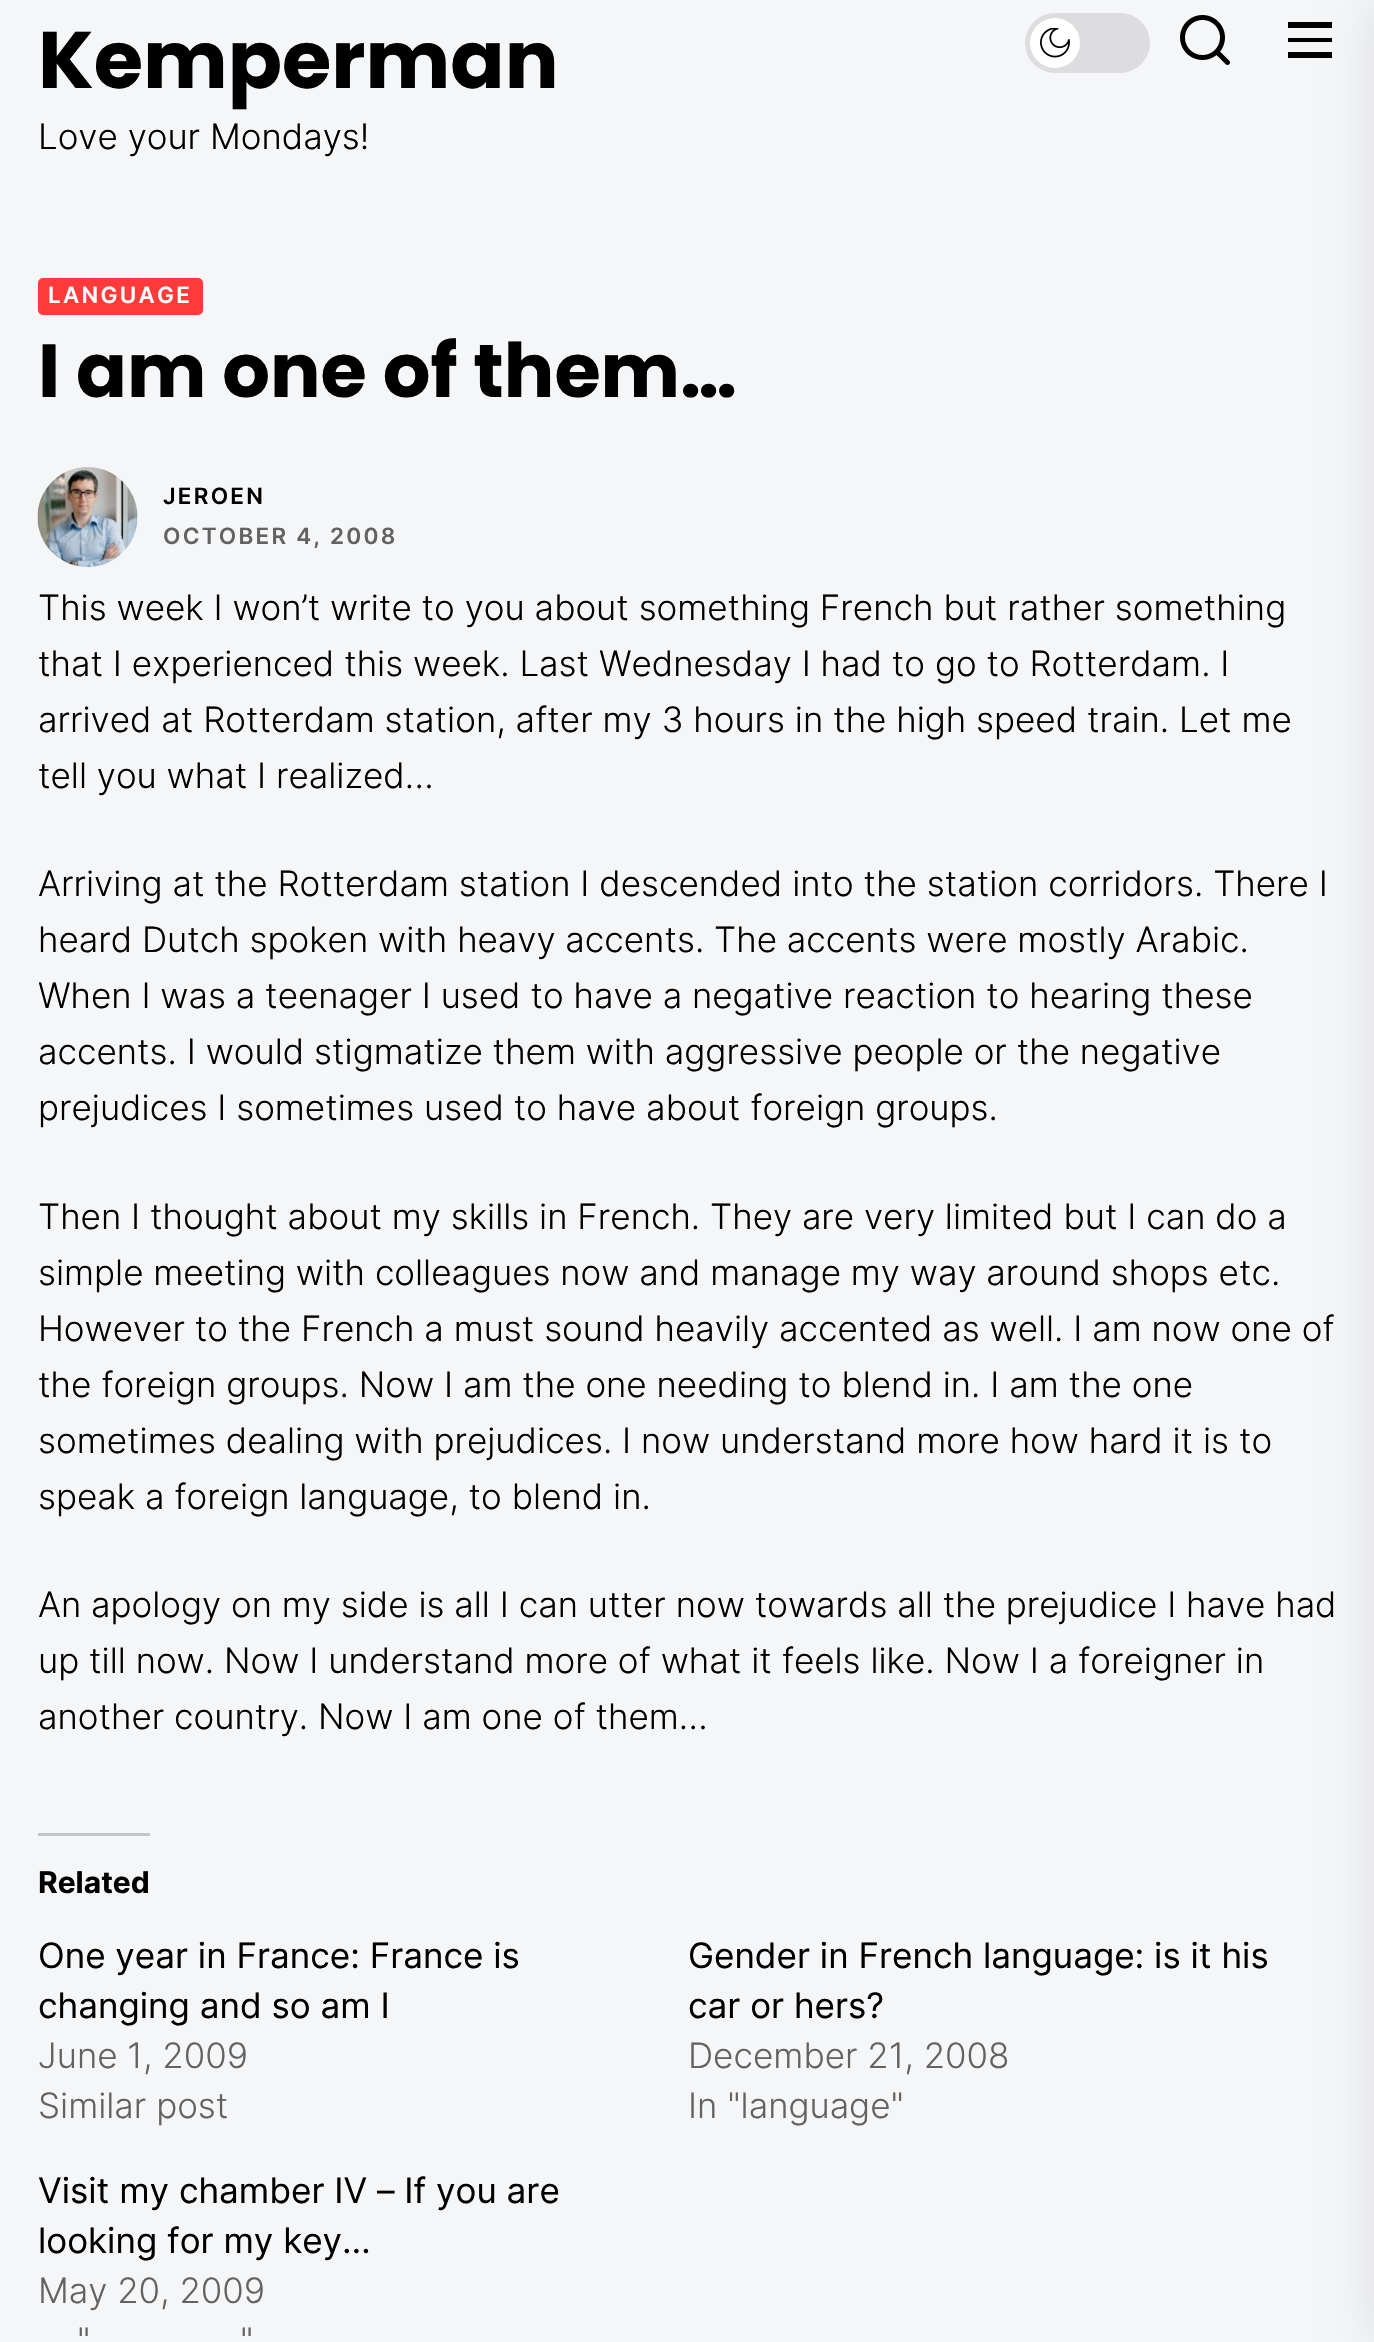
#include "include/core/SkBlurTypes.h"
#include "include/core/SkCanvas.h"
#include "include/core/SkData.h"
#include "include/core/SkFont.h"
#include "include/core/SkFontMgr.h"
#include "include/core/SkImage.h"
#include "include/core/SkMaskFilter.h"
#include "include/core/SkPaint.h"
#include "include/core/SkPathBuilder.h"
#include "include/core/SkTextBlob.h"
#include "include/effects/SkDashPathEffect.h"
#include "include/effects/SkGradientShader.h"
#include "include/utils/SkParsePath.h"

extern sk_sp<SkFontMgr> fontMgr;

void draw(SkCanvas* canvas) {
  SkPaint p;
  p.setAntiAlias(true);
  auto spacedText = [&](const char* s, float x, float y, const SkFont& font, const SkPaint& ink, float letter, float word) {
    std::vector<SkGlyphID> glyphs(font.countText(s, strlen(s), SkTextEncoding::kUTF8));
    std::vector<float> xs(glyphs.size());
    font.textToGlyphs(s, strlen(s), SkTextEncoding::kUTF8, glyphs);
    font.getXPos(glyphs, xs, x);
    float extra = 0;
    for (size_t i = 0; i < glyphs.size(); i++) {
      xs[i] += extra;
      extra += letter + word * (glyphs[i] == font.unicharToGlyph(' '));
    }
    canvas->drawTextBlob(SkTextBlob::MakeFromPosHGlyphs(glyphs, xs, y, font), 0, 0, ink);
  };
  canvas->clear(SkColorSetRGB(245, 246, 248));
  p.setColor(SkColorSetRGB(221, 221, 223));
  canvas->drawRoundRect(SkRect::MakeLTRB(1025, 13, 1150, 73), 30, 30, p);
  p.setColor(SK_ColorWHITE);
  canvas->drawCircle(1055, 43, 25, p);
  canvas->drawImageRect(SkImages::DeferredFromEncodedData(SkData::MakeFromFileName("images/1.png")), SkRect::MakeLTRB(1040, 28, 1070, 58), SkSamplingOptions());
  canvas->drawImageRect(SkImages::DeferredFromEncodedData(SkData::MakeFromFileName("images/2.png")), SkRect::MakeLTRB(1180, 15, 1230, 65), SkSamplingOptions());
  p.setColor(SK_ColorBLACK);
  canvas->drawPath(SkPathBuilder().moveTo(1288, 22).lineTo(1288, 28).lineTo(1332, 28).lineTo(1332, 22).close().moveTo(1288, 42).lineTo(1332, 42).lineTo(1332, 38).lineTo(1288, 38).close().moveTo(1288, 58).lineTo(1332, 58).lineTo(1332, 52).lineTo(1288, 52).close().detach(), p);
  p.setColor(SkColorSetARGB(26, 0, 0, 0));
  p.setMaskFilter(SkMaskFilter::MakeBlur(kNormal_SkBlurStyle, 25));
  canvas->drawRect(SkRect::MakeLTRB(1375, 0, 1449, 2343), p);
  p.setMaskFilter(nullptr);
  p.setColor(SkColorSetRGB(255, 58, 58));
  canvas->drawRoundRect(SkRect::MakeLTRB(38, 278, 203, 315), 5, 5, p);
  canvas->drawImageRect(SkImages::DeferredFromEncodedData(SkData::MakeFromFileName("images/3.png")), SkRect::MakeLTRB(37, 467, 138, 567), SkSamplingOptions());
  p.setColor(SkColorSetRGB(196, 197, 198));
  canvas->drawRect(SkRect::MakeLTRB(38, 1833, 150, 1836), p);
  SkFont font1(fontMgr->matchFamilyStyle("Poppins", SkFontStyle::Bold()), 80);
  font1.setSubpixel(true);
  p.setColor(SK_ColorBLACK);
  canvas->drawString("Kemperman", 38, 88, font1, p);
  SkFont font2(fontMgr->matchFamilyStyle("Inter", SkFontStyle(300, SkFontStyle::kNormal_Width, SkFontStyle::kUpright_Slant)), 35);
  font2.setSubpixel(true);
  canvas->drawString("Love your Mondays!", 38, 149, font2, p);
  SkFont font3(fontMgr->matchFamilyStyle("Inter", SkFontStyle(600, SkFontStyle::kNormal_Width, SkFontStyle::kUpright_Slant)), 22.5f);
  font3.setSubpixel(true);
  p.setColor(SK_ColorWHITE);
  spacedText("LANGUAGE", 48, 303, font3, p, 2.25f, 0);
  SkFont font4(fontMgr->matchFamilyStyle("Poppins", SkFontStyle::Bold()), 75);
  font4.setSubpixel(true);
  p.setColor(SK_ColorBLACK);
  canvas->drawString("I am one of them…", 38, 397, font4, p);
  spacedText("JEROEN", 163, 504, font3, p, 2.25f, 0);
  p.setColor(SkColorSetRGB(98, 98, 99));
  spacedText("OCTOBER 4, 2008", 163, 544, font3, p, 2.25f, 0);
  p.setColor(SK_ColorBLACK);
  canvas->drawString("This week I won’t write to you about something French but rather something", 38, 620, font2, p);
  canvas->drawString("that I experienced this week. Last Wednesday I had to go to Rotterdam. I", 38, 676, font2, p);
  canvas->drawString("arrived at Rotterdam station, after my 3 hours in the high speed train. Let me", 38, 732, font2, p);
  canvas->drawString("tell you what I realized…", 38, 788, font2, p);
  canvas->drawString("Arriving at the Rotterdam station I descended into the station corridors. There I", 38, 896, font2, p);
  canvas->drawString("heard Dutch spoken with heavy accents. The accents were mostly Arabic.", 38, 952, font2, p);
  canvas->drawString("When I was a teenager I used to have a negative reaction to hearing these", 38, 1008, font2, p);
  canvas->drawString("accents. I would stigmatize them with aggressive people or the negative", 38, 1064, font2, p);
  canvas->drawString("prejudices I sometimes used to have about foreign groups.", 38, 1120, font2, p);
  canvas->drawString("Then I thought about my skills in French. They are very limited but I can do a", 38, 1229, font2, p);
  canvas->drawString("simple meeting with colleagues now and manage my way around shops etc.", 38, 1285, font2, p);
  canvas->drawString("However to the French a must sound heavily accented as well. I am now one of", 38, 1341, font2, p);
  canvas->drawString("the foreign groups. Now I am the one needing to blend in. I am the one", 38, 1397, font2, p);
  canvas->drawString("sometimes dealing with prejudices. I now understand more how hard it is to", 38, 1453, font2, p);
  canvas->drawString("speak a foreign language, to blend in.", 38, 1509, font2, p);
  canvas->drawString("An apology on my side is all I can utter now towards all the prejudice I have had", 38, 1617, font2, p);
  canvas->drawString("up till now. Now I understand more of what it feels like. Now I a foreigner in", 38, 1673, font2, p);
  canvas->drawString("another country. Now I am one of them…", 38, 1729, font2, p);
  SkFont font5(fontMgr->matchFamilyStyle("Inter", SkFontStyle::Bold()), 30);
  font5.setSubpixel(true);
  canvas->drawString("Related", 38, 1893, font5, p);
  SkFont font6(fontMgr->matchFamilyStyle("Inter", SkFontStyle::Normal()), 35);
  font6.setSubpixel(true);
  canvas->drawString("One year in France: France is", 38, 1968, font6, p);
  canvas->drawString("changing and so am I", 38, 2018, font6, p);
  p.setColor(SkColorSetRGB(98, 98, 99));
  canvas->drawString("June 1, 2009", 38, 2068, font2, p);
  canvas->drawString("Similar post", 38, 2118, font2, p);
  p.setColor(SK_ColorBLACK);
  canvas->drawString("Gender in French language: is it his", 688, 1968, font6, p);
  canvas->drawString("car or hers?", 688, 2018, font6, p);
  p.setColor(SkColorSetRGB(98, 98, 99));
  canvas->drawString("December 21, 2008", 688, 2068, font2, p);
  canvas->drawString("In \"language\"", 688, 2118, font2, p);
  p.setColor(SK_ColorBLACK);
  canvas->drawString("Visit my chamber IV – If you are", 38, 2203, font6, p);
  canvas->drawString("looking for my key…", 38, 2253, font6, p);
  p.setColor(SkColorSetRGB(98, 98, 99));
  canvas->drawString("May 20, 2009", 38, 2303, font2, p);
  canvas->drawString("\"", 77, 2353, font2, p);
  canvas->drawString("\"", 240, 2353, font2, p);
}
